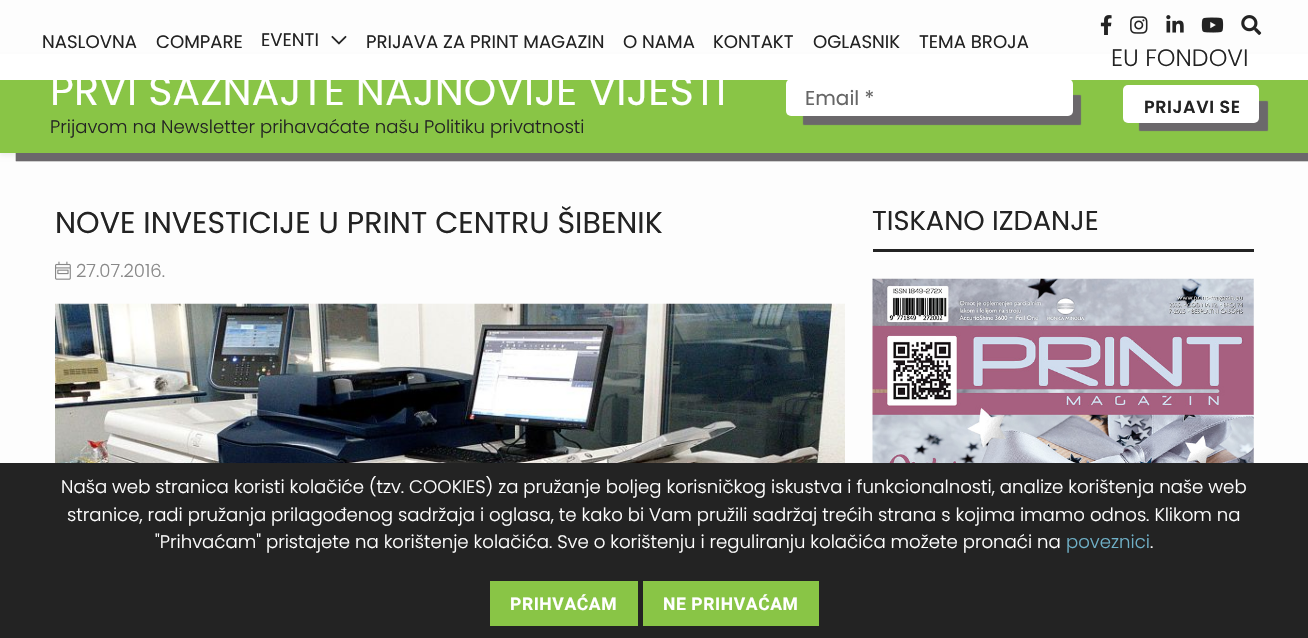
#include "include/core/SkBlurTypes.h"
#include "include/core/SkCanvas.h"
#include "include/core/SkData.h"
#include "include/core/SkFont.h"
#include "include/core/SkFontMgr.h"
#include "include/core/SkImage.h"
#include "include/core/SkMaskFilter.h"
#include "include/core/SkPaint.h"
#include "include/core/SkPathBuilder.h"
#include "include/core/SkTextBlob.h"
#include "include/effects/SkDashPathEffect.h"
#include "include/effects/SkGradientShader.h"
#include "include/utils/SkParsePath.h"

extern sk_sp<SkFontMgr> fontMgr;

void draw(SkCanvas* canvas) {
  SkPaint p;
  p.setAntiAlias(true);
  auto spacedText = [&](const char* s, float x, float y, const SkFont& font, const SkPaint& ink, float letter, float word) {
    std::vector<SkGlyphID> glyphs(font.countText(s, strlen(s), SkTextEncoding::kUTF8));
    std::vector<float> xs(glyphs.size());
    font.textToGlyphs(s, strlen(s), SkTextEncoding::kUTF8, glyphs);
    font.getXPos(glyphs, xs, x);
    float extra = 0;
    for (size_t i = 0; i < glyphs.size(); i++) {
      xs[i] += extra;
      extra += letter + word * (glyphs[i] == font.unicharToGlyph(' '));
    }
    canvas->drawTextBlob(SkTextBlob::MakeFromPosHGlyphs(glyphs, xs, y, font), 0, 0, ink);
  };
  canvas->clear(SkColorSetRGB(253, 253, 253));
  p.setColor(SkColorSetARGB(18, 0, 0, 0));
  p.setMaskFilter(SkMaskFilter::MakeBlur(kNormal_SkBlurStyle, 2.5f));
  canvas->drawRect(SkRect::MakeLTRB(0, 59, 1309, 155), p);
  p.setMaskFilter(nullptr);
  p.setColor(SkColorSetRGB(137, 197, 70));
  canvas->drawRect(SkRect::MakeLTRB(0, 80, 1308, 153), p);
  canvas->save();
  canvas->clipPath(SkPathBuilder(SkPathFillType::kEvenOdd).moveTo(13, 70).lineTo(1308, 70).lineTo(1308, 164).lineTo(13, 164).close().moveTo(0, 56).lineTo(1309, 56).lineTo(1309, 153).lineTo(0, 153).close().detach(), true);
  p.setColor(SkColorSetRGB(107, 104, 107));
  p.setMaskFilter(SkMaskFilter::MakeBlur(kNormal_SkBlurStyle, 0.5f));
  canvas->drawRect(SkRect::MakeLTRB(16, 73, 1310, 161), p);
  p.setMaskFilter(nullptr);
  p.setMaskFilter(SkMaskFilter::MakeBlur(kNormal_SkBlurStyle, 0.5f));
  canvas->drawRect(SkRect::MakeLTRB(16, 73, 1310, 161), p);
  p.setMaskFilter(nullptr);
  canvas->restore();
  p.setMaskFilter(SkMaskFilter::MakeBlur(kNormal_SkBlurStyle, 0.5f));
  canvas->drawRoundRect(SkRect::MakeLTRB(803, 95, 1081, 125), 1, 1, p);
  p.setMaskFilter(nullptr);
  p.setColor(SK_ColorWHITE);
  canvas->drawRoundRect(SkRect::MakeLTRB(786, 79, 1073, 116), 5, 5, p);
  canvas->drawRect(SkRect::MakeLTRB(0, 54, 1308, 80), p);
  canvas->drawImageRect(SkImages::DeferredFromEncodedData(SkData::MakeFromFileName("images/1.png")), SkRect::MakeLTRB(331, 35, 347, 45), SkSamplingOptions());
  canvas->drawImageRect(SkImages::DeferredFromEncodedData(SkData::MakeFromFileName("images/2.png")), SkRect::MakeLTRB(1100, 15, 1112, 35), SkSamplingOptions());
  canvas->drawImageRect(SkImages::DeferredFromEncodedData(SkData::MakeFromFileName("images/3.png")), SkRect::MakeLTRB(1130, 16, 1148, 34), SkSamplingOptions());
  canvas->drawImageRect(SkImages::DeferredFromEncodedData(SkData::MakeFromFileName("images/4.png")), SkRect::MakeLTRB(1166, 15, 1184, 33), SkSamplingOptions());
  canvas->drawImageRect(SkImages::DeferredFromEncodedData(SkData::MakeFromFileName("images/5.png")), SkRect::MakeLTRB(1201, 17, 1224, 33), SkSamplingOptions());
  canvas->drawImageRect(SkImages::DeferredFromEncodedData(SkData::MakeFromFileName("images/6.png")), SkRect::MakeLTRB(1241, 15, 1262, 35), SkSamplingOptions());
  p.setColor(SkColorSetRGB(107, 104, 107));
  p.setMaskFilter(SkMaskFilter::MakeBlur(kNormal_SkBlurStyle, 0.5f));
  canvas->drawRoundRect(SkRect::MakeLTRB(1139, 101, 1268, 131), 1, 1, p);
  p.setMaskFilter(nullptr);
  p.setColor(SK_ColorWHITE);
  canvas->drawRoundRect(SkRect::MakeLTRB(1123, 85, 1259, 123), 5, 5, p);
  canvas->drawImageRect(SkImages::DeferredFromEncodedData(SkData::MakeFromFileName("images/7.png")), SkRect::MakeLTRB(55, 261, 71, 280), SkSamplingOptions());
  canvas->drawImageRect(SkImages::DeferredFromEncodedData(SkData::MakeFromFileName("images/8.png")), SkRect::MakeLTRB(55, 303, 845, 463), SkSamplingOptions());
  p.setColor(SkColorSetRGB(35, 35, 35));
  canvas->drawRect(SkRect::MakeLTRB(873, 249, 1254, 252), p);
  canvas->drawImageRect(SkImages::DeferredFromEncodedData(SkData::MakeFromFileName("images/9.png")), SkRect::MakeLTRB(872, 278, 1254, 463), SkSamplingOptions());
  canvas->drawRect(SkRect::MakeLTRB(0, 463, 1308, 638), p);
  p.setColor(SkColorSetRGB(137, 197, 70));
  canvas->drawRect(SkRect::MakeLTRB(490, 581, 638, 626), p);
  canvas->drawRect(SkRect::MakeLTRB(643, 581, 819, 626), p);
  SkFont font1(fontMgr->matchFamilyStyle("Poppins", SkFontStyle::Normal()), 18.12f);
  font1.setSubpixel(true);
  p.setColor(SkColorSetRGB(35, 35, 35));
  canvas->drawString("NASLOVNA", 42, 48, font1, p);
  canvas->drawString("COMPARE", 156, 48, font1, p);
  canvas->drawString("EVENTI", 261, 46, font1, p);
  canvas->drawString("PRIJAVA ZA PRINT MAGAZIN", 366, 48, font1, p);
  canvas->drawString("O NAMA", 623, 48, font1, p);
  canvas->drawString("KONTAKT", 713, 48, font1, p);
  canvas->drawString("OGLASNIK", 813, 48, font1, p);
  canvas->drawString("TEMA BROJA", 919, 48, font1, p);
  SkFont font2(fontMgr->matchFamilyStyle("Poppins", SkFontStyle(300, SkFontStyle::kNormal_Width, SkFontStyle::kUpright_Slant)), 23.75f);
  font2.setSubpixel(true);
  canvas->drawString("EU FONDOVI", 1111, 66, font2, p);
  SkFont font3(fontMgr->matchFamilyStyle("Poppins", SkFontStyle::Normal()), 41.3f);
  font3.setSubpixel(true);
  p.setColor(SK_ColorWHITE);
  canvas->drawString("PRVI SAZNAJTE NAJNOVIJE VIJESTI", 50, 105, font3, p);
  SkFont font4(fontMgr->matchFamilyStyle("Poppins", SkFontStyle(300, SkFontStyle::kNormal_Width, SkFontStyle::kUpright_Slant)), 18.12f);
  font4.setSubpixel(true);
  p.setColor(SkColorSetRGB(35, 35, 35));
  canvas->drawString("Prijavom na Newsletter prihavaćate našu Politiku privatnosti", 50, 133, font4, p);
  SkFont font5(fontMgr->matchFamilyStyle("Poppins", SkFontStyle::Normal()), 20);
  font5.setSubpixel(true);
  p.setColor(SkColorSetRGB(102, 102, 102));
  canvas->drawString("Email *", 805, 105, font5, p);
  SkFont font6(fontMgr->matchFamilyStyle("Poppins", SkFontStyle(600, SkFontStyle::kNormal_Width, SkFontStyle::kUpright_Slant)), 17.5f);
  font6.setSubpixel(true);
  p.setColor(SkColorSetRGB(35, 35, 35));
  spacedText("PRIJAVI SE", 1144, 113, font6, p, 0.6f, 0);
  SkFont font7(fontMgr->matchFamilyStyle("Poppins", SkFontStyle::Normal()), 30);
  font7.setSubpixel(true);
  canvas->drawString("NOVE INVESTICIJE U PRINT CENTRU ŠIBENIK", 55, 233, font7, p);
  p.setColor(SkColorSetRGB(136, 136, 136));
  canvas->drawString("27.07.2016.", 76, 277, font4, p);
  SkFont font8(fontMgr->matchFamilyStyle("Poppins", SkFontStyle::Normal()), 27.25f);
  font8.setSubpixel(true);
  p.setColor(SkColorSetRGB(35, 35, 35));
  canvas->drawString("TISKANO IZDANJE", 872, 230, font8, p);
  p.setColor(SK_ColorWHITE);
  canvas->drawString("Naša web stranica koristi kolačiće (tzv. COOKIES) za pružanje boljeg korisničkog iskustva i funkcionalnosti, analize korištenja naše web", 61, 493, font4, p);
  canvas->drawString("stranice, radi pružanja prilagođenog sadržaja i oglasa, te kako bi Vam pružili sadržaj trećih strana s kojima imamo odnos. Klikom na", 67, 521, font4, p);
  canvas->drawString("\"Prihvaćam\" pristajete na korištenje kolačića. Sve o korištenju i reguliranju kolačića možete pronaći na", 155, 548, font4, p);
  p.setColor(SkColorSetRGB(111, 176, 199));
  canvas->drawString("poveznici", 1066, 548, font4, p);
  p.setColor(SK_ColorWHITE);
  canvas->drawString(".", 1150, 548, font4, p);
  SkFont font9(fontMgr->matchFamilyStyle("Roboto", SkFontStyle::Bold()), 17.5f);
  font9.setSubpixel(true);
  spacedText("PRIHVAĆAM", 510, 610, font9, p, 0.6f, 0);
  spacedText("NE PRIHVAĆAM", 663, 610, font9, p, 0.6f, 0);
}
